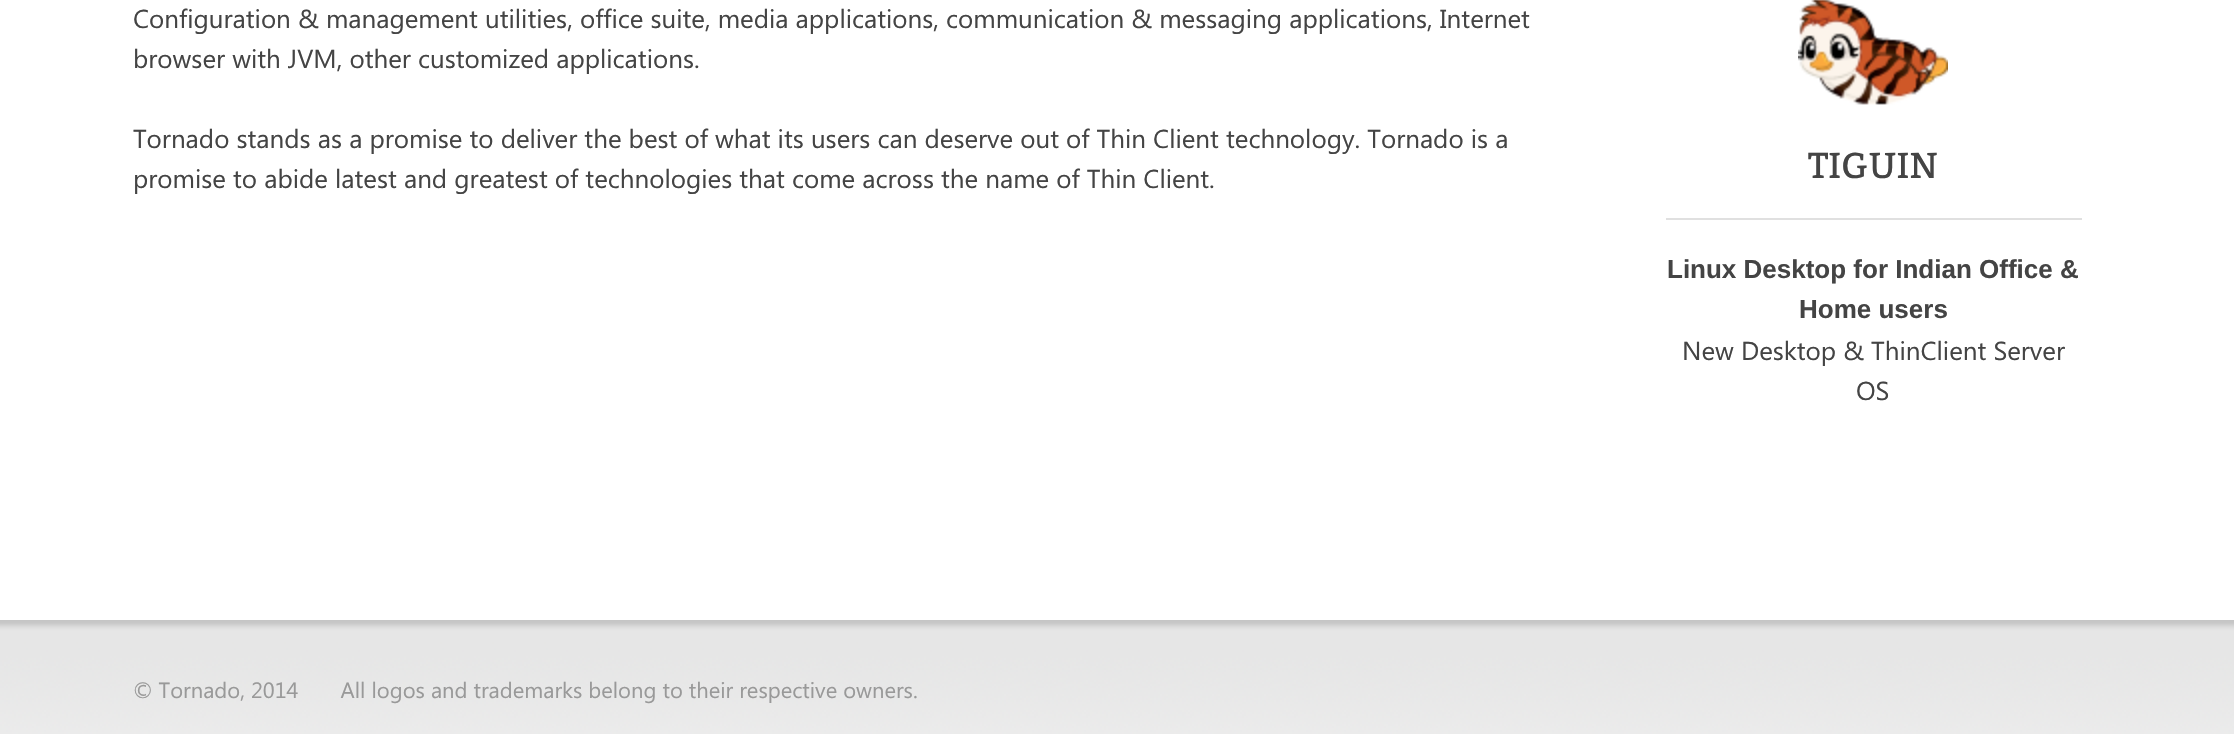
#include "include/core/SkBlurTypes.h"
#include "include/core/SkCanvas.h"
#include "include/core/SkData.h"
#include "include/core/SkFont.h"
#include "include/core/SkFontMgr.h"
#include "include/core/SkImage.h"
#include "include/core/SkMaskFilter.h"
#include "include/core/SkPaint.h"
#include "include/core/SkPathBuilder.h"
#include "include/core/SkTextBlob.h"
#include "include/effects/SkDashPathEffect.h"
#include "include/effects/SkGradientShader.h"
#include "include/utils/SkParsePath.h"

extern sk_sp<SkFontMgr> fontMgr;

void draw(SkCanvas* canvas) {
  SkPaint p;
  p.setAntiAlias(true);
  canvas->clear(SK_ColorWHITE);
  canvas->drawImageRect(SkImages::DeferredFromEncodedData(SkData::MakeFromFileName("images/1.png")), SkRect::MakeLTRB(1798, 0, 1948, 105), SkSamplingOptions());
  p.setColor(SkColorSetRGB(224, 224, 224));
  canvas->drawRect(SkRect::MakeLTRB(1666, 218, 2082, 220), p);
  canvas->drawImageRect(SkImages::DeferredFromEncodedData(SkData::MakeFromFileName("images/2.png")), SkRect::MakeLTRB(0, 620, 2234, 734), SkSamplingOptions());
  SkFont font1(fontMgr->matchFamilyStyle("Segoe UI", SkFontStyle::Normal()), 26);
  font1.setSubpixel(true);
  p.setColor(SkColorSetRGB(68, 68, 68));
  canvas->drawString("Configuration & management utilities, office suite, media applications, communication & messaging applications, Internet", 133, 28, font1, p);
  canvas->drawString("browser with JVM, other customized applications.", 133, 68, font1, p);
  canvas->drawString("Tornado stands as a promise to deliver the best of what its users can deserve out of Thin Client technology. Tornado is a", 133, 148, font1, p);
  canvas->drawString("promise to abide latest and greatest of technologies that come across the name of Thin Client.", 133, 188, font1, p);
  SkFont font2(fontMgr->matchFamilyStyle("Bitter", SkFontStyle::Normal()), 36);
  font2.setSubpixel(true);
  canvas->drawString("TIGUIN", 1808, 178, font2, p);
  SkFont font3(fontMgr->matchFamilyStyle("Liberation Sans", SkFontStyle::Bold()), 26);
  font3.setSubpixel(true);
  canvas->drawString("Linux Desktop for Indian Office &", 1667, 278, font3, p);
  canvas->drawString("Home users", 1799, 318, font3, p);
  canvas->drawString("New Desktop & ThinClient Server", 1682, 360, font1, p);
  canvas->drawString("OS", 1856, 400, font1, p);
  SkFont font4(fontMgr->matchFamilyStyle("Segoe UI", SkFontStyle::Normal()), 22);
  font4.setSubpixel(true);
  p.setColor(SkColorSetRGB(153, 153, 153));
  canvas->drawString("© Tornado, 2014       All logos and trademarks belong to their respective owners.", 133, 698, font4, p);
}
